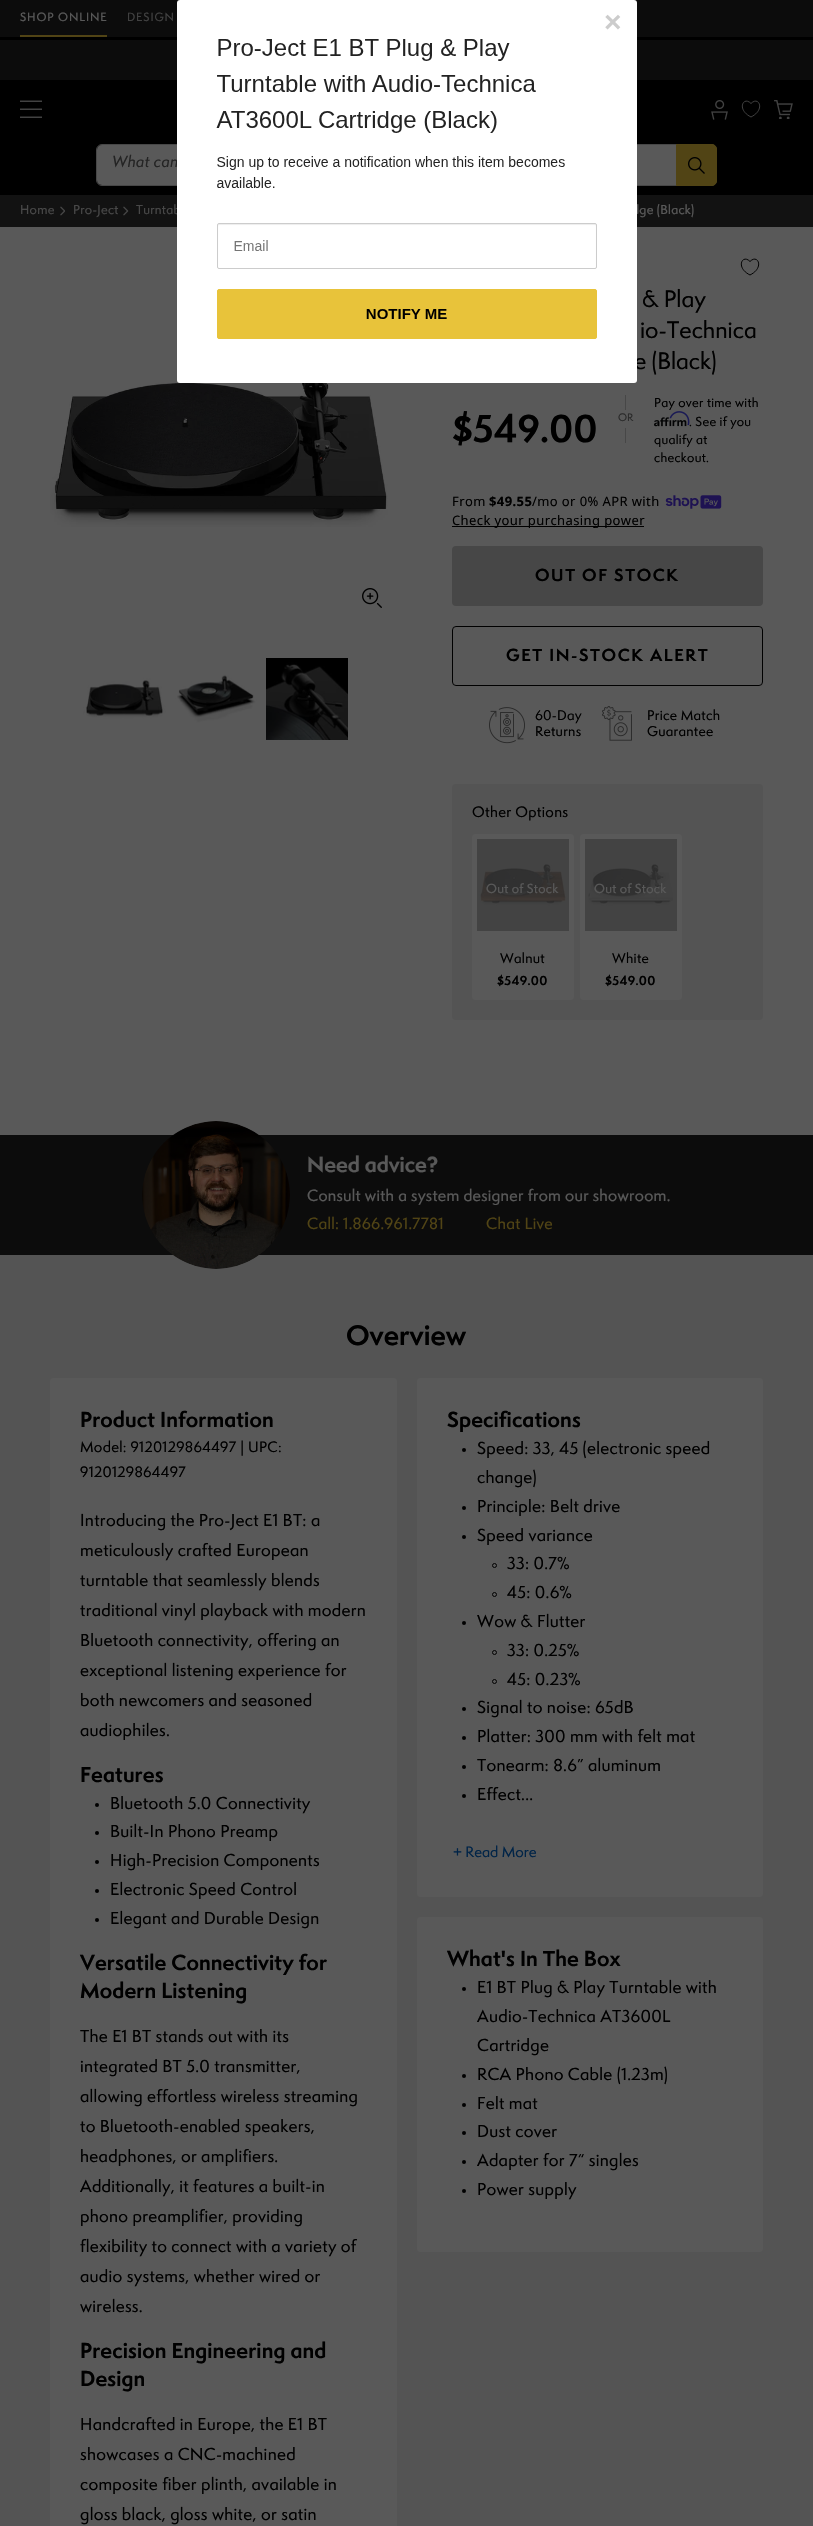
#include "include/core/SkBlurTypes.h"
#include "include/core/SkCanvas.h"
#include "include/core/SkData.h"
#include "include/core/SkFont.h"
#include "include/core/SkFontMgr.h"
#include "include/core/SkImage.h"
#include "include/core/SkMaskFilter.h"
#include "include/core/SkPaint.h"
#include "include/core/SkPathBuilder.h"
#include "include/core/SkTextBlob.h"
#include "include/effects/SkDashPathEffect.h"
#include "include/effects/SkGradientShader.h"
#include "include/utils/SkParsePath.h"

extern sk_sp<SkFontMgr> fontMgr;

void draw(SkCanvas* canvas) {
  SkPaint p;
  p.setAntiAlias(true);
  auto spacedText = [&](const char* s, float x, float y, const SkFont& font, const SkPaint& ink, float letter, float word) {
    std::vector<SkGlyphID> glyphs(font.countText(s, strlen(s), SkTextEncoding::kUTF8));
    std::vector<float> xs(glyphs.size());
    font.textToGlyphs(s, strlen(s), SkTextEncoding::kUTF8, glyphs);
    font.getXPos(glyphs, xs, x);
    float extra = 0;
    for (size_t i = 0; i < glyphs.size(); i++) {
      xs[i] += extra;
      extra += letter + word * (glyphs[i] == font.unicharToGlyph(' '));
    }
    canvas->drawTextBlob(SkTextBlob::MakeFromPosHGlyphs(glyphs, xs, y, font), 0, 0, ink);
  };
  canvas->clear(SkColorSetRGB(51, 51, 51));
  p.setColor(SkColorSetRGB(32, 32, 32));
  canvas->drawRect(SkRect::MakeLTRB(0, 0, 813, 80), p);
  p.setColor(SK_ColorBLACK);
  canvas->drawRect(SkRect::MakeLTRB(0, 37, 813, 40), p);
  p.setColor(SkColorSetRGB(232, 195, 58));
  canvas->drawRect(SkRect::MakeLTRB(20, 35, 107, 37), p);
  p.setColor(SK_ColorBLACK);
  canvas->drawRect(SkRect::MakeLTRB(0, 80, 813, 195), p);
  canvas->drawImageRect(SkImages::DeferredFromEncodedData(SkData::MakeFromFileName("images/2.png")), SkRect::MakeLTRB(20, 100, 42, 118), SkSamplingOptions());
  canvas->drawImageRect(SkImages::DeferredFromEncodedData(SkData::MakeFromFileName("images/3.png")), SkRect::MakeLTRB(711, 100, 728, 120), SkSamplingOptions());
  p.setStyle(SkPaint::kStroke_Style);
  p.setStrokeWidth(1);
  p.setColor(SkColorSetRGB(187, 187, 187));
  canvas->drawPath(SkPathBuilder().moveTo(751, 117).cubicTo(736, 109.5f, 743.5f, 95.5f, 751, 103.5f).cubicTo(758.5f, 95.5f, 766, 109.5f, 751, 117).close().detach(), p);
  canvas->drawImageRect(SkImages::DeferredFromEncodedData(SkData::MakeFromFileName("images/4.png")), SkRect::MakeLTRB(774, 100, 793, 119), SkSamplingOptions());
  p.setColor(SkColorSetRGB(204, 204, 204));
  canvas->drawRoundRect(SkRect::MakeLTRB(96.5f, 144.5f, 716.5f, 185.5f), 5.5f, 5.5f, p);
  p.setStyle(SkPaint::kFill_Style);
  p.setColor(SK_ColorWHITE);
  canvas->drawRoundRect(SkRect::MakeLTRB(97, 145, 716, 185), 5, 5, p);
  p.setColor(SkColorSetRGB(232, 195, 58));
  canvas->drawPath(SkPathBuilder().moveTo(676.5f, 144.5f).lineTo(712, 144.5f).cubicTo(714.5f, 144.5f, 716.5f, 146.5f, 716.5f, 149).lineTo(716.5f, 181).cubicTo(716.5f, 183.5f, 714.5f, 185.5f, 712, 185.5f).lineTo(676.5f, 185.5f).close().detach(), p);
  p.setStyle(SkPaint::kStroke_Style);
  canvas->drawPath(SkPathBuilder().moveTo(676.5f, 144.5f).lineTo(712, 144.5f).cubicTo(714.5f, 144.5f, 716.5f, 146.5f, 716.5f, 149).lineTo(716.5f, 181).cubicTo(716.5f, 183.5f, 714.5f, 185.5f, 712, 185.5f).lineTo(676.5f, 185.5f).close().detach(), p);
  canvas->drawImageRect(SkImages::DeferredFromEncodedData(SkData::MakeFromFileName("images/5.png")), SkRect::MakeLTRB(688, 157, 705, 174), SkSamplingOptions());
  canvas->drawImageRect(SkImages::DeferredFromEncodedData(SkData::MakeFromFileName("images/6.png")), SkRect::MakeLTRB(60, 206, 65, 216), SkSamplingOptions());
  canvas->drawImageRect(SkImages::DeferredFromEncodedData(SkData::MakeFromFileName("images/7.png")), SkRect::MakeLTRB(123, 206, 129, 216), SkSamplingOptions());
  p.setStyle(SkPaint::kFill_Style);
  p.setColor(SK_ColorWHITE);
  canvas->drawRect(SkRect::MakeLTRB(0, 227, 813, 1135), p);
  p.setColor(SkColorSetRGB(241, 241, 241));
  canvas->drawRect(SkRect::MakeLTRB(0, 1255, 813, 2526), p);
  canvas->drawImageRect(SkImages::DeferredFromEncodedData(SkData::MakeFromFileName("images/8.png")), SkRect::MakeLTRB(50, 366, 388, 527), SkSamplingOptions());
  canvas->drawImageRect(SkImages::DeferredFromEncodedData(SkData::MakeFromFileName("images/9.png")), SkRect::MakeLTRB(362, 588, 382, 608), SkSamplingOptions());
  canvas->drawImageRect(SkImages::DeferredFromEncodedData(SkData::MakeFromFileName("images/10.png")), SkRect::MakeLTRB(83, 658, 166, 740), SkSamplingOptions());
  canvas->drawImageRect(SkImages::DeferredFromEncodedData(SkData::MakeFromFileName("images/11.png")), SkRect::MakeLTRB(175, 658, 257, 740), SkSamplingOptions());
  canvas->drawImageRect(SkImages::DeferredFromEncodedData(SkData::MakeFromFileName("images/12.png")), SkRect::MakeLTRB(266, 658, 348, 740), SkSamplingOptions());
  p.setStyle(SkPaint::kStroke_Style);
  p.setColor(SK_ColorBLACK);
  canvas->drawPath(SkPathBuilder().moveTo(750, 275).cubicTo(735, 267.5f, 742.5f, 253.5f, 750, 261.5f).cubicTo(757.5f, 253.5f, 765, 267.5f, 750, 275).close().detach(), p);
  p.setStyle(SkPaint::kFill_Style);
  p.setColor(SkColorSetRGB(204, 204, 204));
  canvas->drawRect(SkRect::MakeLTRB(625, 395, 626, 410), p);
  canvas->drawRect(SkRect::MakeLTRB(625, 428, 626, 443), p);
  canvas->drawImageRect(SkImages::DeferredFromEncodedData(SkData::MakeFromFileName("images/14.png")), SkRect::MakeLTRB(654, 417, 687, 427), SkSamplingOptions());
  canvas->drawImageRect(SkImages::DeferredFromEncodedData(SkData::MakeFromFileName("images/13.png")), SkRect::MakeLTRB(669, 411, 690, 426), SkSamplingOptions());
  canvas->drawImageRect(SkImages::DeferredFromEncodedData(SkData::MakeFromFileName("images/15.png")), SkRect::MakeLTRB(665, 495, 722, 509), SkSamplingOptions());
  p.setColor(SK_ColorBLACK);
  canvas->drawRect(SkRect::MakeLTRB(452, 526, 644, 527), p);
  p.setColor(SkColorSetRGB(204, 204, 204));
  canvas->drawRoundRect(SkRect::MakeLTRB(452, 546, 763, 606), 4, 4, p);
  p.setStyle(SkPaint::kStroke_Style);
  p.setColor(SK_ColorBLACK);
  canvas->drawRoundRect(SkRect::MakeLTRB(452.5f, 626.5f, 762.5f, 685.5f), 3.5f, 3.5f, p);
  canvas->drawImageRect(SkImages::DeferredFromEncodedData(SkData::MakeFromFileName("images/16.png")), SkRect::MakeLTRB(489, 707, 525, 744), SkSamplingOptions());
  canvas->drawImageRect(SkImages::DeferredFromEncodedData(SkData::MakeFromFileName("images/17.png")), SkRect::MakeLTRB(602, 706, 632, 741), SkSamplingOptions());
  p.setStyle(SkPaint::kFill_Style);
  p.setColor(SkColorSetRGB(241, 241, 241));
  canvas->drawRoundRect(SkRect::MakeLTRB(452, 784, 763, 1020), 4, 4, p);
  p.setColor(SK_ColorWHITE);
  canvas->drawRoundRect(SkRect::MakeLTRB(472, 834, 574, 1000), 4, 4, p);
  canvas->drawImageRect(SkImages::DeferredFromEncodedData(SkData::MakeFromFileName("images/18.png")), SkRect::MakeLTRB(477, 839, 569, 931), SkSamplingOptions());
  canvas->drawRoundRect(SkRect::MakeLTRB(580, 834, 682, 1000), 4, 4, p);
  canvas->drawImageRect(SkImages::DeferredFromEncodedData(SkData::MakeFromFileName("images/19.png")), SkRect::MakeLTRB(585, 839, 677, 931), SkSamplingOptions());
  p.setColor(SkColorSetRGB(32, 32, 32));
  canvas->drawRect(SkRect::MakeLTRB(0, 1135, 813, 1255), p);
  canvas->drawImageRect(SkImages::DeferredFromEncodedData(SkData::MakeFromFileName("images/20.png")), SkRect::MakeLTRB(142, 1121, 290, 1269), SkSamplingOptions());
  p.setColor(SK_ColorWHITE);
  canvas->drawRoundRect(SkRect::MakeLTRB(50, 1378, 397, 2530), 4, 4, p);
  p.setColor(SK_ColorBLACK);
  canvas->drawCircle(97, 1805, 2, p);
  canvas->drawCircle(97, 1833, 2, p);
  canvas->drawCircle(97, 1862, 2, p);
  canvas->drawCircle(97, 1891, 2, p);
  canvas->drawCircle(97, 1920, 2, p);
  p.setColor(SK_ColorWHITE);
  canvas->drawRoundRect(SkRect::MakeLTRB(417, 1378, 763, 1897), 4, 4, p);
  p.setColor(SK_ColorBLACK);
  canvas->drawCircle(464, 1450, 2, p);
  canvas->drawCircle(464, 1508, 2, p);
  canvas->drawCircle(464, 1537, 2, p);
  p.setStyle(SkPaint::kStroke_Style);
  canvas->drawCircle(494.5f, 1565.5f, 2, p);
  canvas->drawCircle(494.5f, 1594.5f, 2, p);
  p.setStyle(SkPaint::kFill_Style);
  canvas->drawCircle(464, 1623, 2, p);
  p.setStyle(SkPaint::kStroke_Style);
  canvas->drawCircle(494.5f, 1652.5f, 2, p);
  canvas->drawCircle(494.5f, 1681.5f, 2, p);
  p.setStyle(SkPaint::kFill_Style);
  canvas->drawCircle(464, 1709, 2, p);
  canvas->drawCircle(464, 1738, 2, p);
  canvas->drawCircle(464, 1767, 2, p);
  canvas->drawCircle(464, 1796, 2, p);
  p.setColor(SK_ColorWHITE);
  canvas->drawRoundRect(SkRect::MakeLTRB(417, 1917, 763, 2252), 4, 4, p);
  p.setColor(SK_ColorBLACK);
  canvas->drawCircle(464, 1989, 2, p);
  canvas->drawCircle(464, 2076, 2, p);
  canvas->drawCircle(464, 2105, 2, p);
  canvas->drawCircle(464, 2133, 2, p);
  canvas->drawCircle(464, 2162, 2, p);
  canvas->drawCircle(464, 2191, 2, p);
  SkFont font1(fontMgr->matchFamilyStyle("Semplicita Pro", SkFontStyle(500, SkFontStyle::kNormal_Width, SkFontStyle::kUpright_Slant)), 11);
  font1.setSubpixel(true);
  p.setColor(SK_ColorWHITE);
  spacedText("SHOP ONLINE", 20, 21, font1, p, 0.9f, 0);
  p.setColor(SkColorSetRGB(187, 187, 187));
  spacedText("DESIGN", 127, 21, font1, p, 0.9f, 0);
  SkFont font2(fontMgr->matchFamilyStyle("Semplicita Pro", SkFontStyle(500, SkFontStyle::kNormal_Width, SkFontStyle::kItalic_Slant)), 15);
  font2.setSubpixel(true);
  p.setColor(SkColorSetRGB(102, 102, 102));
  spacedText("What can", 112, 167, font2, p, 0.25f, 0);
  SkFont font3(fontMgr->matchFamilyStyle("Semplicita Pro", SkFontStyle(500, SkFontStyle::kNormal_Width, SkFontStyle::kUpright_Slant)), 12);
  font3.setSubpixel(true);
  p.setColor(SkColorSetRGB(205, 205, 205));
  spacedText("Home", 20, 214, font3, p, 0.3f, 0);
  spacedText("Pro-Ject", 73, 214, font3, p, 0.3f, 0);
  spacedText("Turntab", 136, 214, font3, p, 0.3f, 0);
  p.setColor(SK_ColorWHITE);
  spacedText("dge (Black)", 632, 214, font3, p, 0.3f, 0);
  SkFont font4(fontMgr->matchFamilyStyle("Semplicita Pro", SkFontStyle(500, SkFontStyle::kNormal_Width, SkFontStyle::kUpright_Slant)), 22);
  font4.setSubpixel(true);
  p.setColor(SK_ColorBLACK);
  canvas->drawString("& Play", 642, 307, font4, p);
  canvas->drawString("io-Technica", 640, 338, font4, p);
  canvas->drawString("e (Black)", 634, 369, font4, p);
  SkFont font5(fontMgr->matchFamilyStyle("Semplicita Pro", SkFontStyle::Bold()), 36);
  font5.setSubpixel(true);
  canvas->drawString("$549.00", 452, 442, font5, p);
  SkFont font6(fontMgr->matchFamilyStyle("Semplicita Pro", SkFontStyle(500, SkFontStyle::kNormal_Width, SkFontStyle::kUpright_Slant)), 10);
  font6.setSubpixel(true);
  p.setColor(SkColorSetRGB(119, 119, 119));
  canvas->drawString("OR", 618, 421, font6, p);
  p.setColor(SK_ColorBLACK);
  spacedText("Pay over time with", 654, 407, font3, p, 0.3f, 0);
  spacedText(". See if you", 689, 426, font3, p, 0.3f, 0);
  spacedText("qualify at", 654, 444, font3, p, 0.3f, 0);
  spacedText("checkout.", 654, 462, font3, p, 0.3f, 0);
  SkFont font7(fontMgr->matchFamilyStyle("Noto Sans", SkFontStyle::Normal()), 13);
  font7.setSubpixel(true);
  spacedText("From", 452, 506, font7, p, 0.4f, 0);
  SkFont font8(fontMgr->matchFamilyStyle("Noto Sans", SkFontStyle::Bold()), 13);
  font8.setSubpixel(true);
  spacedText("$49.55", 489, 506, font8, p, 0.4f, 0);
  spacedText("/mo or 0% APR with", 532, 506, font7, p, 0.4f, 0);
  spacedText("Check your purchasing power", 452, 525, font7, p, 0.4f, 0);
  SkFont font9(fontMgr->matchFamilyStyle("Semplicita Pro", SkFontStyle::Bold()), 16);
  font9.setSubpixel(true);
  spacedText("OUT OF STOCK", 535, 581, font9, p, 1.6f, 0);
  spacedText("GET IN-STOCK ALERT", 506, 661, font9, p, 1.6f, 0);
  SkFont font10(fontMgr->matchFamilyStyle("Semplicita Pro", SkFontStyle(500, SkFontStyle::kNormal_Width, SkFontStyle::kUpright_Slant)), 13);
  font10.setSubpixel(true);
  spacedText("60-Day", 535, 720, font10, p, 0.25f, 0);
  spacedText("Returns", 535, 736, font10, p, 0.25f, 0);
  spacedText("Price Match", 647, 720, font10, p, 0.25f, 0);
  spacedText("Guarantee", 647, 736, font10, p, 0.25f, 0);
  SkFont font11(fontMgr->matchFamilyStyle("Semplicita Pro", SkFontStyle(500, SkFontStyle::kNormal_Width, SkFontStyle::kUpright_Slant)), 14);
  font11.setSubpixel(true);
  spacedText("Other Options", 472, 817, font11, p, 0.3f, 0);
  p.setColor(SK_ColorWHITE);
  spacedText("Out of Stock", 486, 893, font3, p, 0.3f, 0);
  p.setColor(SK_ColorBLACK);
  spacedText("Walnut", 500, 963, font10, p, 0.3f, 0);
  SkFont font12(fontMgr->matchFamilyStyle("Semplicita Pro", SkFontStyle::Bold()), 12);
  font12.setSubpixel(true);
  spacedText("$549.00", 497, 985, font12, p, 0.3f, 0);
  p.setColor(SK_ColorWHITE);
  spacedText("Out of Stock", 594, 893, font3, p, 0.3f, 0);
  p.setColor(SK_ColorBLACK);
  spacedText("White", 612, 963, font10, p, 0.3f, 0);
  spacedText("$549.00", 605, 985, font12, p, 0.3f, 0);
  SkFont font13(fontMgr->matchFamilyStyle("Semplicita Pro", SkFontStyle::Bold()), 20);
  font13.setSubpixel(true);
  p.setColor(SK_ColorWHITE);
  canvas->drawString("Need advice?", 307, 1172, font13, p);
  SkFont font14(fontMgr->matchFamilyStyle("Semplicita Pro", SkFontStyle(500, SkFontStyle::kNormal_Width, SkFontStyle::kUpright_Slant)), 15);
  font14.setSubpixel(true);
  spacedText("Consult with a system designer from our showroom.", 307, 1201, font14, p, 0.3f, 0);
  p.setColor(SkColorSetRGB(232, 195, 58));
  spacedText("Call: 1.866.961.7781", 307, 1229, font14, p, 0.3f, 0);
  spacedText("Chat Live", 486, 1229, font14, p, 0.3f, 0);
  SkFont font15(fontMgr->matchFamilyStyle("Semplicita Pro", SkFontStyle::Bold()), 26);
  font15.setSubpixel(true);
  p.setColor(SK_ColorBLACK);
  canvas->drawString("Overview", 346, 1345, font15, p);
  spacedText("Product Information", 80, 1427, font13, p, 0.1f, 0);
  spacedText("Model: 9120129864497 | UPC:", 80, 1452, font11, p, 0.3f, 0);
  spacedText("9120129864497", 80, 1477, font11, p, 0.3f, 0);
  SkFont font16(fontMgr->matchFamilyStyle("Semplicita Pro", SkFontStyle(500, SkFontStyle::kNormal_Width, SkFontStyle::kUpright_Slant)), 16);
  font16.setSubpixel(true);
  spacedText("Introducing the Pro-Ject E1 BT: a", 80, 1526, font16, p, 0.3f, 0);
  spacedText("meticulously crafted European", 80, 1556, font16, p, 0.3f, 0);
  spacedText("turntable that seamlessly blends", 80, 1586, font16, p, 0.3f, 0);
  spacedText("traditional vinyl playback with modern", 80, 1616, font16, p, 0.3f, 0);
  spacedText("Bluetooth connectivity, offering an", 80, 1646, font16, p, 0.3f, 0);
  spacedText("exceptional listening experience for", 80, 1676, font16, p, 0.3f, 0);
  spacedText("both newcomers and seasoned", 80, 1706, font16, p, 0.3f, 0);
  spacedText("audiophiles.", 80, 1736, font16, p, 0.3f, 0);
  spacedText("Features", 80, 1782, font13, p, 0.1f, 0);
  spacedText("Bluetooth 5.0 Connectivity", 110, 1809, font16, p, 0.3f, 0);
  spacedText("Built-In Phono Preamp", 110, 1837, font16, p, 0.3f, 0);
  spacedText("High-Precision Components", 110, 1866, font16, p, 0.3f, 0);
  spacedText("Electronic Speed Control", 110, 1895, font16, p, 0.3f, 0);
  spacedText("Elegant and Durable Design", 110, 1924, font16, p, 0.3f, 0);
  spacedText("Versatile Connectivity for", 80, 1970, font13, p, 0.1f, 0);
  spacedText("Modern Listening", 80, 1998, font13, p, 0.1f, 0);
  spacedText("The E1 BT stands out with its", 80, 2042, font16, p, 0.3f, 0);
  spacedText("integrated BT 5.0 transmitter,", 80, 2072, font16, p, 0.3f, 0);
  spacedText("allowing effortless wireless streaming", 80, 2102, font16, p, 0.3f, 0);
  spacedText("to Bluetooth-enabled speakers,", 80, 2132, font16, p, 0.3f, 0);
  spacedText("headphones, or amplifiers.", 80, 2162, font16, p, 0.3f, 0);
  spacedText("Additionally, it features a built-in", 80, 2192, font16, p, 0.3f, 0);
  spacedText("phono preamplifier, providing", 80, 2222, font16, p, 0.3f, 0);
  spacedText("flexibility to connect with a variety of", 80, 2252, font16, p, 0.3f, 0);
  spacedText("audio systems, whether wired or", 80, 2282, font16, p, 0.3f, 0);
  spacedText("wireless.", 80, 2312, font16, p, 0.3f, 0);
  spacedText("Precision Engineering and", 80, 2358, font13, p, 0.1f, 0);
  spacedText("Design", 80, 2386, font13, p, 0.1f, 0);
  spacedText("Handcrafted in Europe, the E1 BT", 80, 2430, font16, p, 0.3f, 0);
  spacedText("showcases a CNC-machined", 80, 2460, font16, p, 0.3f, 0);
  spacedText("composite fiber plinth, available in", 80, 2490, font16, p, 0.3f, 0);
  spacedText("gloss black, gloss white, or satin", 80, 2520, font16, p, 0.3f, 0);
  spacedText("Specifications", 447, 1427, font13, p, 0.1f, 0);
  spacedText("Speed: 33, 45 (electronic speed", 477, 1454, font16, p, 0.3f, 0);
  spacedText("change)", 477, 1483, font16, p, 0.3f, 0);
  spacedText("Principle: Belt drive", 477, 1512, font16, p, 0.3f, 0);
  spacedText("Speed variance", 477, 1541, font16, p, 0.3f, 0);
  spacedText("33: 0.7%", 507, 1569, font16, p, 0.3f, 0);
  spacedText("45: 0.6%", 507, 1598, font16, p, 0.3f, 0);
  spacedText("Wow & Flutter", 477, 1627, font16, p, 0.3f, 0);
  spacedText("33: 0.25%", 507, 1656, font16, p, 0.3f, 0);
  spacedText("45: 0.23%", 507, 1685, font16, p, 0.3f, 0);
  spacedText("Signal to noise: 65dB", 477, 1713, font16, p, 0.3f, 0);
  spacedText("Platter: 300 mm with felt mat", 477, 1742, font16, p, 0.3f, 0);
  spacedText("Tonearm: 8.6” aluminum", 477, 1771, font16, p, 0.3f, 0);
  spacedText("Effect...", 477, 1800, font16, p, 0.3f, 0);
  p.setColor(SkColorSetRGB(0, 102, 204));
  canvas->drawString("+ Read More", 453, 1857, font11, p);
  p.setColor(SK_ColorBLACK);
  spacedText("What's In The Box", 447, 1966, font13, p, 0.1f, 0);
  spacedText("E1 BT Plug & Play Turntable with", 477, 1993, font16, p, 0.3f, 0);
  spacedText("Audio-Technica AT3600L", 477, 2022, font16, p, 0.3f, 0);
  spacedText("Cartridge", 477, 2051, font16, p, 0.3f, 0);
  spacedText("RCA Phono Cable (1.23m)", 477, 2080, font16, p, 0.3f, 0);
  spacedText("Felt mat", 477, 2109, font16, p, 0.3f, 0);
  spacedText("Dust cover", 477, 2137, font16, p, 0.3f, 0);
  spacedText("Adapter for 7“ singles", 477, 2166, font16, p, 0.3f, 0);
  spacedText("Power supply", 477, 2195, font16, p, 0.3f, 0);
  canvas->drawImageRect(SkImages::DeferredFromEncodedData(SkData::MakeFromFileName("images/1.png")), SkRect::MakeLTRB(0, 0, 813, 2526), SkSamplingOptions());
}
